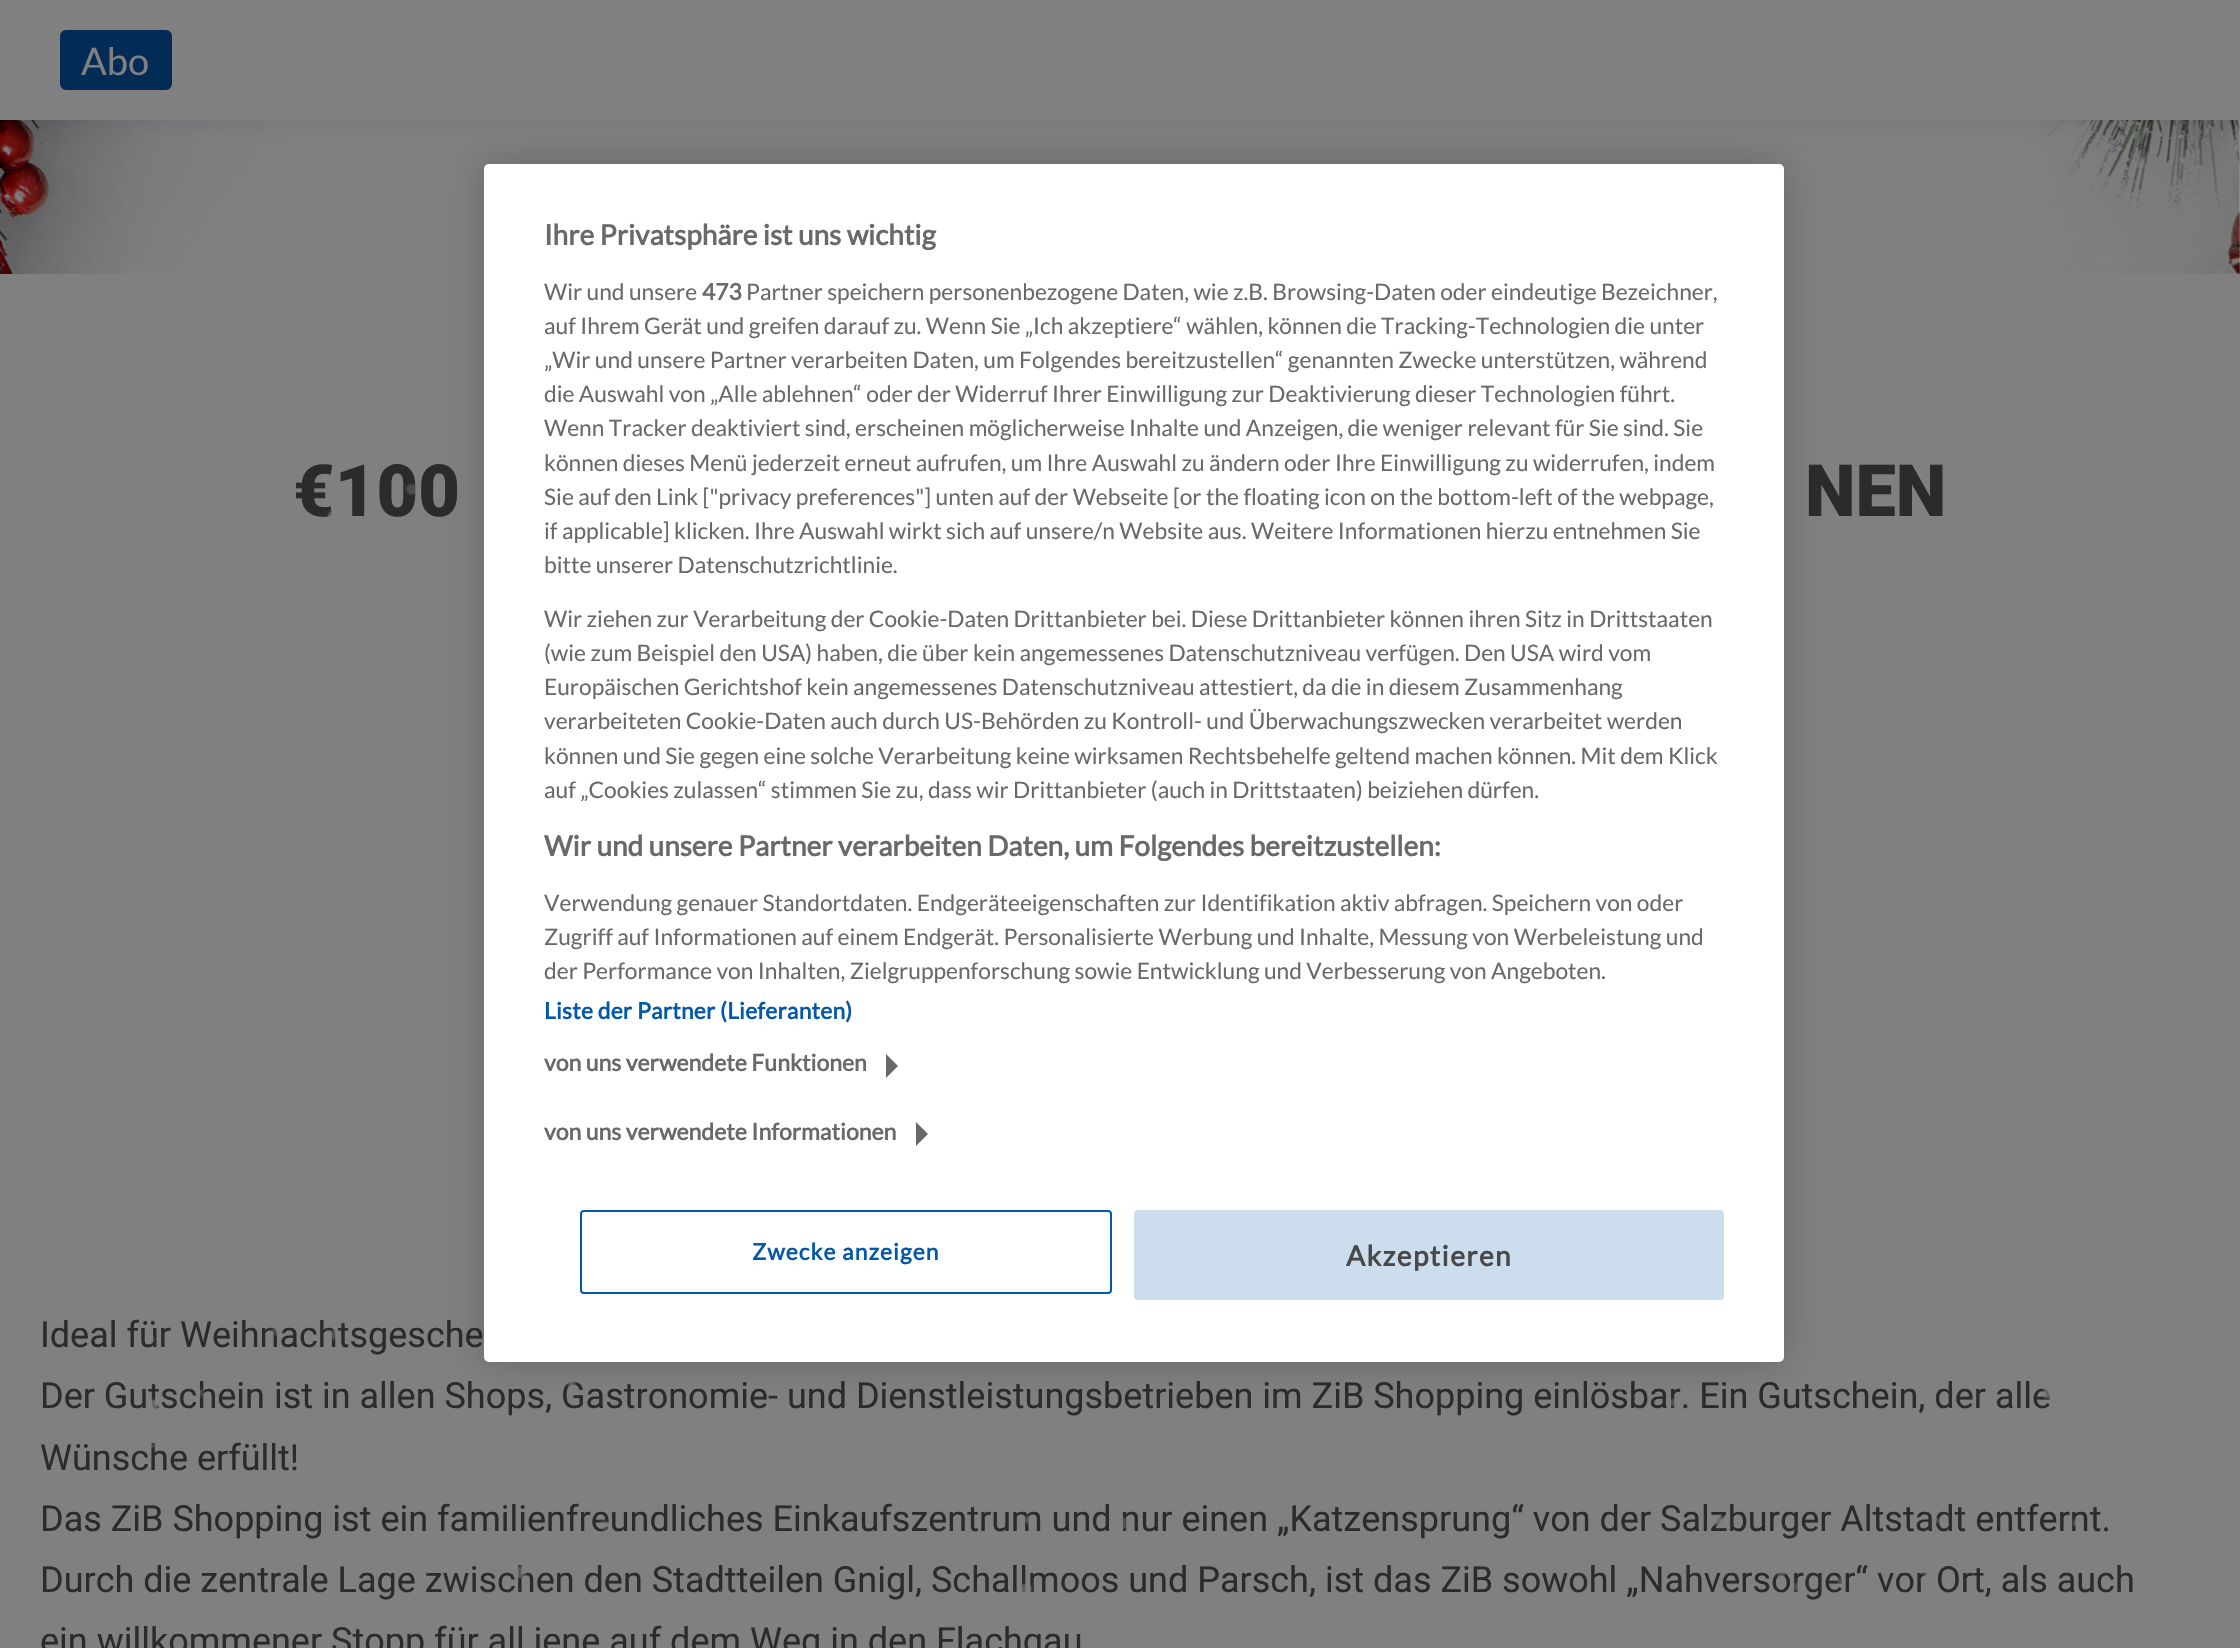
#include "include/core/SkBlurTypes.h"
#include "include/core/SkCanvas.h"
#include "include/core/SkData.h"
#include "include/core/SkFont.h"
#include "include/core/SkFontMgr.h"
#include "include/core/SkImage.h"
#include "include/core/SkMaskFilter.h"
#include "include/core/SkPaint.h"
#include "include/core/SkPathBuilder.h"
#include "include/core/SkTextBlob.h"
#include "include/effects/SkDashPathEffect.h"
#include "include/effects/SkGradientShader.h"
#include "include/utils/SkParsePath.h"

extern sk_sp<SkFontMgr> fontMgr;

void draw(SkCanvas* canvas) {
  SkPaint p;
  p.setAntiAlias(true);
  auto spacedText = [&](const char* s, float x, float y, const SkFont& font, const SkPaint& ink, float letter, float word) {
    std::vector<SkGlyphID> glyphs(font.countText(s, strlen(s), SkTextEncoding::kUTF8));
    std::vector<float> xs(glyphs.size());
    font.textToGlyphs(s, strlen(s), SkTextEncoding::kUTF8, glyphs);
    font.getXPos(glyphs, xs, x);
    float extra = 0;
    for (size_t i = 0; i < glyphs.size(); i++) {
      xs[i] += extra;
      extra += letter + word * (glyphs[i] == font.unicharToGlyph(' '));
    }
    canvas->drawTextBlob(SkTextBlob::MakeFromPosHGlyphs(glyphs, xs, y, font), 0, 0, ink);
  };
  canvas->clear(SK_ColorWHITE);
  canvas->drawImageRect(SkImages::DeferredFromEncodedData(SkData::MakeFromFileName("images/1.png")), SkRect::MakeLTRB(0, 120, 2240, 274), SkSamplingOptions());
  p.setColor(SkColorSetRGB(128, 128, 128));
  canvas->drawRect(SkRect::MakeLTRB(0, 274, 2240, 1648), p);
  SkFont font1(fontMgr->matchFamilyStyle("Roboto", SkFontStyle(900, SkFontStyle::kNormal_Width, SkFontStyle::kUpright_Slant)), 72);
  font1.setSubpixel(true);
  p.setColor(SkColorSetRGB(43, 43, 43));
  canvas->drawString("€100", 293, 516, font1, p);
  canvas->drawString("NEN", 1805, 516, font1, p);
  SkFont font2(fontMgr->matchFamilyStyle("Roboto", SkFontStyle::Normal()), 36);
  font2.setSubpixel(true);
  canvas->drawString("Ideal für Weihnachtsgesche", 40, 1347, font2, p);
  canvas->drawString("Der Gutschein ist in allen Shops, Gastronomie- und Dienstleistungsbetrieben im ZiB Shopping einlösbar. Ein Gutschein, der alle", 40, 1408, font2, p);
  canvas->drawString("Wünsche erfüllt!", 40, 1470, font2, p);
  canvas->drawString("Das ZiB Shopping ist ein familienfreundliches Einkaufszentrum und nur einen „Katzensprung“ von der Salzburger Altstadt entfernt.", 40, 1531, font2, p);
  canvas->drawString("Durch die zentrale Lage zwischen den Stadtteilen Gnigl, Schallmoos und Parsch, ist das ZiB sowohl „Nahversorger“ vor Ort, als auch", 40, 1592, font2, p);
  canvas->drawString("ein willkommener Stopp für all jene auf dem Weg in den Flachgau", 40, 1653, font2, p);
  canvas->drawImageRect(SkImages::DeferredFromEncodedData(SkData::MakeFromFileName("images/2.png")), SkRect::MakeLTRB(3, 120, 2226, 1592), SkSamplingOptions());
  p.setColor(SkColorSetARGB(23, 0, 0, 0));
  p.setMaskFilter(SkMaskFilter::MakeBlur(kNormal_SkBlurStyle, 12));
  canvas->drawRect(SkRect::MakeLTRB(0, 0, 2240, 120), p);
  p.setMaskFilter(nullptr);
  p.setColor(SkColorSetRGB(128, 128, 128));
  canvas->drawRect(SkRect::MakeLTRB(0, 0, 2240, 120), p);
  p.setColor(SkColorSetRGB(2, 44, 85));
  canvas->drawRoundRect(SkRect::MakeLTRB(61, 31, 171, 89), 5, 5, p);
  p.setStyle(SkPaint::kStroke_Style);
  p.setStrokeWidth(2);
  canvas->drawRoundRect(SkRect::MakeLTRB(61, 31, 171, 89), 5, 5, p);
  SkFont font3(fontMgr->matchFamilyStyle("Lato", SkFontStyle::Normal()), 38);
  font3.setSubpixel(true);
  p.setStyle(SkPaint::kFill_Style);
  p.setColor(SkColorSetRGB(128, 128, 128));
  canvas->drawString("Abo", 81, 75, font3, p);
  p.setColor(SkColorSetARGB(51, 0, 0, 0));
  p.setMaskFilter(SkMaskFilter::MakeBlur(kNormal_SkBlurStyle, 18));
  canvas->drawRoundRect(SkRect::MakeLTRB(484, 164, 1784, 1362), 5, 5, p);
  p.setMaskFilter(nullptr);
  p.setColor(SK_ColorWHITE);
  canvas->drawRoundRect(SkRect::MakeLTRB(484, 164, 1784, 1362), 5, 5, p);
  SkFont font4(fontMgr->matchFamilyStyle("Lato", SkFontStyle::Bold()), 28);
  font4.setSubpixel(true);
  p.setColor(SkColorSetRGB(105, 105, 105));
  canvas->drawString("Ihre Privatsphäre ist uns wichtig", 544, 245, font4, p);
  SkFont font5(fontMgr->matchFamilyStyle("Lato", SkFontStyle::Normal()), 22.75f);
  font5.setSubpixel(true);
  canvas->drawString("Wir und unsere", 544, 300, font5, p);
  SkFont font6(fontMgr->matchFamilyStyle("Lato", SkFontStyle::Bold()), 22.75f);
  font6.setSubpixel(true);
  canvas->drawString("473", 702, 300, font6, p);
  canvas->drawString("Partner speichern personenbezogene Daten, wie z.B. Browsing-Daten oder eindeutige Bezeichner,", 746, 300, font5, p);
  canvas->drawString("auf Ihrem Gerät und greifen darauf zu. Wenn Sie „Ich akzeptiere“ wählen, können die Tracking-Technologien die unter", 544, 334, font5, p);
  canvas->drawString("„Wir und unsere Partner verarbeiten Daten, um Folgendes bereitzustellen“ genannten Zwecke unterstützen, während", 544, 368, font5, p);
  canvas->drawString("die Auswahl von „Alle ablehnen“ oder der Widerruf Ihrer Einwilligung zur Deaktivierung dieser Technologien führt.", 544, 402, font5, p);
  canvas->drawString("Wenn Tracker deaktiviert sind, erscheinen möglicherweise Inhalte und Anzeigen, die weniger relevant für Sie sind. Sie", 544, 436, font5, p);
  canvas->drawString("können dieses Menü jederzeit erneut aufrufen, um Ihre Auswahl zu ändern oder Ihre Einwilligung zu widerrufen, indem", 544, 471, font5, p);
  canvas->drawString("Sie auf den Link [\"privacy preferences\"] unten auf der Webseite [or the floating icon on the bottom-left of the webpage,", 544, 505, font5, p);
  canvas->drawString("if applicable] klicken. Ihre Auswahl wirkt sich auf unsere/n Website aus. Weitere Informationen hierzu entnehmen Sie", 544, 539, font5, p);
  canvas->drawString("bitte unserer Datenschutzrichtlinie.", 544, 573, font5, p);
  canvas->drawString("Wir ziehen zur Verarbeitung der Cookie-Daten Drittanbieter bei. Diese Drittanbieter können ihren Sitz in Drittstaaten", 544, 627, font5, p);
  canvas->drawString("(wie zum Beispiel den USA) haben, die über kein angemessenes Datenschutzniveau verfügen. Den USA wird vom", 544, 661, font5, p);
  canvas->drawString("Europäischen Gerichtshof kein angemessenes Datenschutzniveau attestiert, da die in diesem Zusammenhang", 544, 695, font5, p);
  canvas->drawString("verarbeiteten Cookie-Daten auch durch US-Behörden zu Kontroll- und Überwachungszwecken verarbeitet werden", 544, 729, font5, p);
  canvas->drawString("können und Sie gegen eine solche Verarbeitung keine wirksamen Rechtsbehelfe geltend machen können. Mit dem Klick", 544, 764, font5, p);
  canvas->drawString("auf „Cookies zulassen“ stimmen Sie zu, dass wir Drittanbieter (auch in Drittstaaten) beiziehen dürfen.", 544, 798, font5, p);
  canvas->drawString("Wir und unsere Partner verarbeiten Daten, um Folgendes bereitzustellen:", 544, 856, font4, p);
  canvas->drawString("Verwendung genauer Standortdaten. Endgeräteeigenschaften zur Identifikation aktiv abfragen. Speichern von oder", 544, 911, font5, p);
  canvas->drawString("Zugriff auf Informationen auf einem Endgerät. Personalisierte Werbung und Inhalte, Messung von Werbeleistung und", 544, 945, font5, p);
  canvas->drawString("der Performance von Inhalten, Zielgruppenforschung sowie Entwicklung und Verbesserung von Angeboten.", 544, 979, font5, p);
  p.setColor(SkColorSetRGB(3, 88, 169));
  spacedText("Liste der Partner (Lieferanten)", 544, 1019, font6, p, 0.25f, 0);
  SkFont font7(fontMgr->matchFamilyStyle("Lato", SkFontStyle::Bold()), 23);
  font7.setSubpixel(true);
  p.setColor(SkColorSetRGB(105, 105, 105));
  canvas->drawString("von uns verwendete Funktionen", 544, 1071, font7, p);
  canvas->drawPath(SkPathBuilder().moveTo(886, 1078).lineTo(886, 1054).lineTo(898, 1066).close().detach(), p);
  canvas->drawString("von uns verwendete Informationen", 544, 1140, font7, p);
  canvas->drawPath(SkPathBuilder().moveTo(916, 1146).lineTo(916, 1122).lineTo(928, 1134).close().detach(), p);
  p.setStyle(SkPaint::kStroke_Style);
  p.setColor(SkColorSetRGB(3, 88, 169));
  canvas->drawRoundRect(SkRect::MakeLTRB(581, 1211, 1111, 1293), 3, 3, p);
  p.setStyle(SkPaint::kFill_Style);
  spacedText("Zwecke anzeigen", 752, 1260, font6, p, 1.1f, 0);
  p.setColor(SkColorSetRGB(204, 221, 238));
  canvas->drawRoundRect(SkRect::MakeLTRB(1135, 1211, 1723, 1299), 3, 3, p);
  p.setStyle(SkPaint::kStroke_Style);
  canvas->drawRoundRect(SkRect::MakeLTRB(1135, 1211, 1723, 1299), 3, 3, p);
  p.setStyle(SkPaint::kFill_Style);
  p.setColor(SkColorSetRGB(72, 72, 72));
  spacedText("Akzeptieren", 1346, 1266, font4, p, 1.4f, 0);
}
